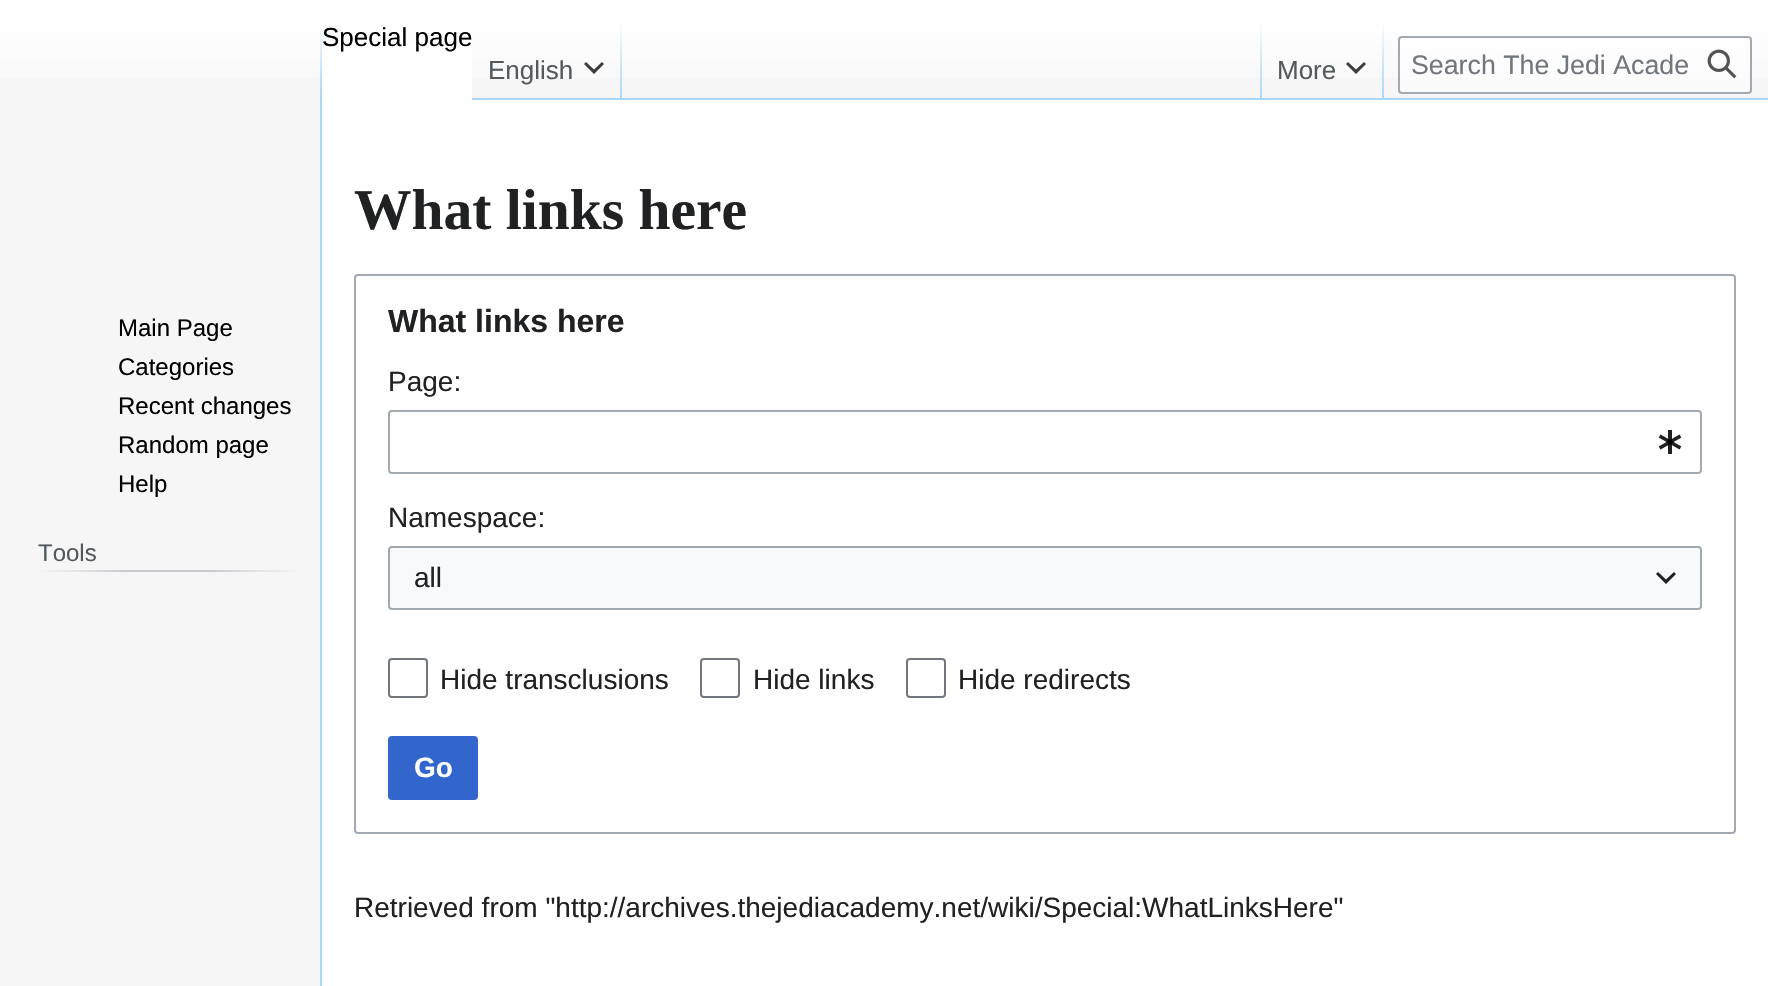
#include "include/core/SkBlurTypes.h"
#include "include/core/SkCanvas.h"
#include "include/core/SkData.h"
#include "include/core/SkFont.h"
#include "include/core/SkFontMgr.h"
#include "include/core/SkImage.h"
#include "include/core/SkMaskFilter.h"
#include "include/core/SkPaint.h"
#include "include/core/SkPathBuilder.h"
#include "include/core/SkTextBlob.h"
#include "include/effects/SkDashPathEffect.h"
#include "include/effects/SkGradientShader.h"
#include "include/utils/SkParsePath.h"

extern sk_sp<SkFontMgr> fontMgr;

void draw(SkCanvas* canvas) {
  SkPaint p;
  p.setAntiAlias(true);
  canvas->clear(SkColorSetRGB(246, 246, 246));
  {
    const SkColor colors[] = {SK_ColorWHITE, SkColorSetRGB(246, 246, 246)};
    const float stops[] = {0.5f, 1};
    const SkPoint ends[] = {{884, -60}, {884, 100}};
    p.setShader(SkGradientShader::MakeLinear(ends, colors, stops, 2, SkTileMode::kClamp));
    p.setAlpha(255);
  }
  canvas->drawRect(SkRect::MakeLTRB(0, 0, 1768, 78), p);
  p.setShader(nullptr);
  p.setColor(SkColorSetRGB(167, 215, 249));
  canvas->drawRect(SkRect::MakeLTRB(320, 98, 322, 986), p);
  {
    const SkColor colors[] = {SkColorSetARGB(0, 167, 215, 249), SkColorSetRGB(167, 215, 249)};
    const float stops[] = {0, 1};
    const SkPoint ends[] = {{321, 20}, {321, 100}};
    p.setShader(SkGradientShader::MakeLinear(ends, colors, stops, 2, SkTileMode::kClamp));
    p.setAlpha(255);
  }
  canvas->drawRect(SkRect::MakeLTRB(320, 20, 322, 100), p);
  p.setShader(nullptr);
  p.setColor(SK_ColorWHITE);
  canvas->drawRect(SkRect::MakeLTRB(322, 42, 472, 100), p);
  p.setColor(SkColorSetRGB(167, 215, 249));
  canvas->drawRect(SkRect::MakeLTRB(472, 98, 1768, 100), p);
  {
    const SkColor colors[] = {SkColorSetARGB(0, 167, 215, 249), SkColorSetRGB(167, 215, 249)};
    const float stops[] = {0, 1};
    const SkPoint ends[] = {{621, 20}, {621, 100}};
    p.setShader(SkGradientShader::MakeLinear(ends, colors, stops, 2, SkTileMode::kClamp));
    p.setAlpha(255);
  }
  canvas->drawRect(SkRect::MakeLTRB(620, 20, 622, 100), p);
  p.setShader(nullptr);
  p.setColor(SkColorSetRGB(60, 61, 62));
  canvas->drawPath(SkPathBuilder().moveTo(604, 64).lineTo(602, 62).lineTo(594, 69.5f).lineTo(586, 62).lineTo(584, 64).lineTo(594, 74).close().detach(), p);
  {
    const SkColor colors[] = {SkColorSetARGB(0, 167, 215, 249), SkColorSetRGB(167, 215, 249)};
    const float stops[] = {0, 1};
    const SkPoint ends[] = {{1261, 20}, {1261, 100}};
    p.setShader(SkGradientShader::MakeLinear(ends, colors, stops, 2, SkTileMode::kClamp));
    p.setAlpha(255);
  }
  canvas->drawRect(SkRect::MakeLTRB(1260, 20, 1262, 100), p);
  {
    const SkColor colors[] = {SkColorSetARGB(0, 167, 215, 249), SkColorSetRGB(167, 215, 249)};
    const float stops[] = {0, 1};
    const SkPoint ends[] = {{1383, 20}, {1383, 100}};
    p.setShader(SkGradientShader::MakeLinear(ends, colors, stops, 2, SkTileMode::kClamp));
    p.setAlpha(255);
  }
  canvas->drawRect(SkRect::MakeLTRB(1382, 20, 1384, 100), p);
  p.setShader(nullptr);
  p.setColor(SkColorSetRGB(60, 61, 62));
  canvas->drawPath(SkPathBuilder().moveTo(1366, 64).lineTo(1364, 62).lineTo(1356, 69.5f).lineTo(1348, 62).lineTo(1346, 64).lineTo(1356, 74).close().detach(), p);
  p.setColor(SkColorSetARGB(128, 255, 255, 255));
  canvas->drawRoundRect(SkRect::MakeLTRB(1399, 37, 1751, 93), 3, 3, p);
  p.setStyle(SkPaint::kStroke_Style);
  p.setStrokeWidth(2);
  p.setColor(SkColorSetRGB(162, 169, 177));
  canvas->drawRoundRect(SkRect::MakeLTRB(1399, 37, 1751, 93), 3, 3, p);
  canvas->drawImageRect(SkImages::DeferredFromEncodedData(SkData::MakeFromFileName("images/1.png")), SkRect::MakeLTRB(1707, 49, 1737, 79), SkSamplingOptions());
  p.setStyle(SkPaint::kFill_Style);
  {
    const SkColor colors[] = {SkColorSetRGB(246, 246, 246), SkColorSetRGB(200, 204, 209), SkColorSetRGB(200, 204, 209), SkColorSetRGB(246, 246, 246)};
    const float stops[] = {0, 0.33f, 0.66f, 1};
    const SkPoint ends[] = {{38, 571}, {300, 571}};
    p.setShader(SkGradientShader::MakeLinear(ends, colors, stops, 4, SkTileMode::kClamp));
    p.setAlpha(255);
  }
  canvas->drawRect(SkRect::MakeLTRB(38, 570, 300, 572), p);
  p.setShader(nullptr);
  p.setColor(SK_ColorWHITE);
  canvas->drawRect(SkRect::MakeLTRB(322, 100, 1768, 986), p);
  p.setStyle(SkPaint::kStroke_Style);
  p.setColor(SkColorSetRGB(162, 169, 177));
  canvas->drawRoundRect(SkRect::MakeLTRB(355, 275, 1735, 833), 3, 3, p);
  canvas->drawRoundRect(SkRect::MakeLTRB(389, 411, 1701, 473), 3, 3, p);
  canvas->drawImageRect(SkImages::DeferredFromEncodedData(SkData::MakeFromFileName("images/2.png")), SkRect::MakeLTRB(1658, 430, 1682, 454), SkSamplingOptions());
  p.setStyle(SkPaint::kFill_Style);
  p.setColor(SkColorSetRGB(248, 249, 250));
  canvas->drawRoundRect(SkRect::MakeLTRB(389, 547, 1701, 609), 3, 3, p);
  p.setStyle(SkPaint::kStroke_Style);
  p.setColor(SkColorSetRGB(162, 169, 177));
  canvas->drawRoundRect(SkRect::MakeLTRB(389, 547, 1701, 609), 3, 3, p);
  p.setStyle(SkPaint::kFill_Style);
  p.setColor(SkColorSetRGB(32, 32, 33));
  canvas->drawPath(SkPathBuilder().moveTo(1674, 572).lineTo(1666, 579.5f).lineTo(1658, 572).lineTo(1656, 574).lineTo(1666, 584).lineTo(1676, 574).close().detach(), p);
  p.setStyle(SkPaint::kStroke_Style);
  p.setColor(SkColorSetRGB(114, 119, 125));
  canvas->drawRoundRect(SkRect::MakeLTRB(389, 659, 427, 697), 3, 3, p);
  canvas->drawRoundRect(SkRect::MakeLTRB(701, 659, 739, 697), 3, 3, p);
  canvas->drawRoundRect(SkRect::MakeLTRB(907, 659, 945, 697), 3, 3, p);
  p.setStyle(SkPaint::kFill_Style);
  p.setColor(SkColorSetRGB(51, 102, 204));
  canvas->drawRoundRect(SkRect::MakeLTRB(389, 737, 477, 799), 3, 3, p);
  p.setStyle(SkPaint::kStroke_Style);
  canvas->drawRoundRect(SkRect::MakeLTRB(389, 737, 477, 799), 3, 3, p);
  SkFont font1(fontMgr->matchFamilyStyle("Liberation Sans", SkFontStyle::Normal()), 26);
  font1.setSubpixel(true);
  p.setStyle(SkPaint::kFill_Style);
  p.setColor(SK_ColorBLACK);
  canvas->drawString("Special page", 322, 46, font1, p);
  p.setColor(SkColorSetRGB(84, 89, 93));
  canvas->drawString("English", 488, 79, font1, p);
  canvas->drawString("More", 1277, 79, font1, p);
  SkFont font2(fontMgr->matchFamilyStyle("Liberation Sans", SkFontStyle::Normal()), 26.75f);
  font2.setSubpixel(true);
  p.setColor(SkColorSetRGB(114, 119, 125));
  canvas->drawString("Search The Jedi Acade", 1411, 74, font2, p);
  SkFont font3(fontMgr->matchFamilyStyle("Liberation Sans", SkFontStyle::Normal()), 24);
  font3.setSubpixel(true);
  p.setColor(SK_ColorBLACK);
  canvas->drawString("Main Page", 118, 336, font3, p);
  canvas->drawString("Categories", 118, 375, font3, p);
  canvas->drawString("Recent changes", 118, 414, font3, p);
  canvas->drawString("Random page", 118, 453, font3, p);
  canvas->drawString("Help", 118, 492, font3, p);
  p.setColor(SkColorSetRGB(84, 89, 93));
  canvas->drawString("Tools", 38, 561, font3, p);
  SkFont font4(fontMgr->matchFamilyStyle("Liberation Serif", SkFontStyle::Bold()), 57.5f);
  font4.setSubpixel(true);
  p.setColor(SkColorSetRGB(32, 33, 34));
  canvas->drawString("What links here", 354, 229, font4, p);
  SkFont font5(fontMgr->matchFamilyStyle("Liberation Sans", SkFontStyle::Bold()), 32);
  font5.setSubpixel(true);
  canvas->drawString("What links here", 388, 332, font5, p);
  SkFont font6(fontMgr->matchFamilyStyle("Liberation Sans", SkFontStyle::Normal()), 28);
  font6.setSubpixel(true);
  canvas->drawString("Page:", 388, 391, font6, p);
  canvas->drawString("Namespace:", 388, 527, font6, p);
  canvas->drawString("all", 414, 587, font6, p);
  canvas->drawString("Hide transclusions", 440, 689, font6, p);
  canvas->drawString("Hide links", 753, 689, font6, p);
  canvas->drawString("Hide redirects", 958, 689, font6, p);
  SkFont font7(fontMgr->matchFamilyStyle("Liberation Sans", SkFontStyle::Bold()), 28);
  font7.setSubpixel(true);
  p.setColor(SK_ColorWHITE);
  canvas->drawString("Go", 414, 777, font7, p);
  p.setColor(SkColorSetRGB(32, 33, 34));
  canvas->drawString("Retrieved from \"http://archives.thejediacademy.net/wiki/Special:WhatLinksHere\"", 354, 917, font6, p);
}
